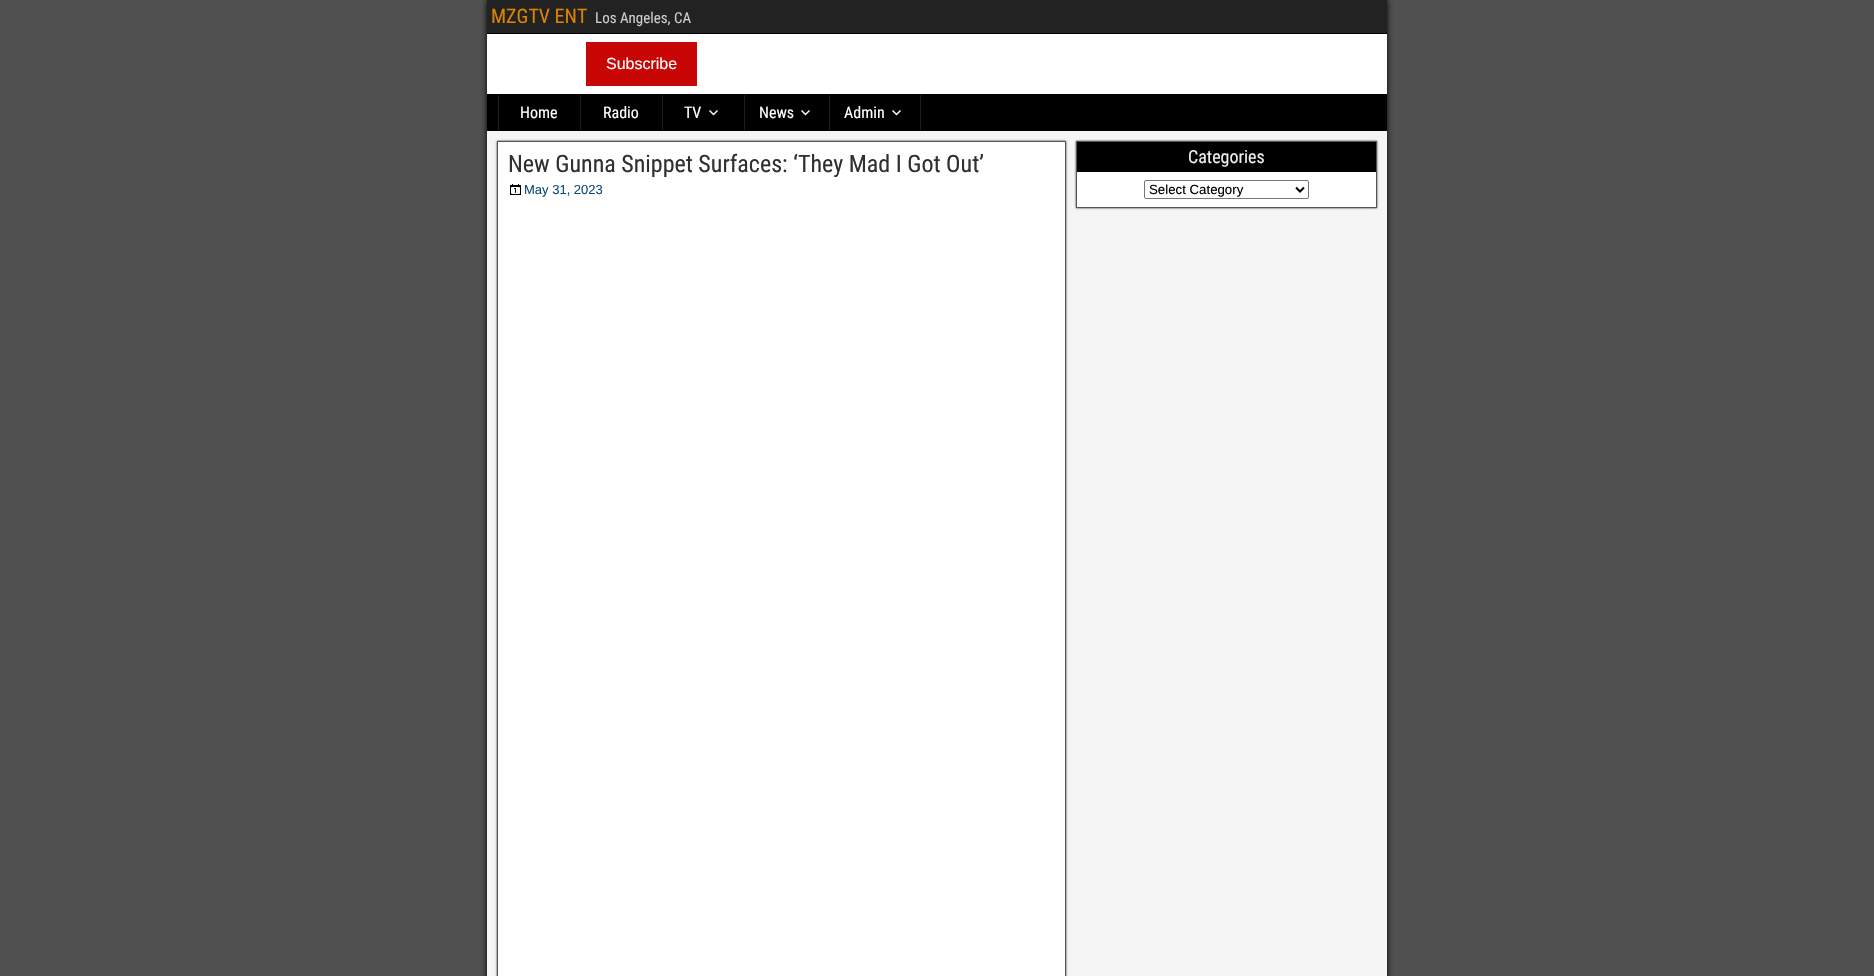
#include "include/core/SkBlurTypes.h"
#include "include/core/SkCanvas.h"
#include "include/core/SkData.h"
#include "include/core/SkFont.h"
#include "include/core/SkFontMgr.h"
#include "include/core/SkImage.h"
#include "include/core/SkMaskFilter.h"
#include "include/core/SkPaint.h"
#include "include/core/SkPathBuilder.h"
#include "include/core/SkTextBlob.h"
#include "include/effects/SkDashPathEffect.h"
#include "include/effects/SkGradientShader.h"
#include "include/utils/SkParsePath.h"

extern sk_sp<SkFontMgr> fontMgr;

void draw(SkCanvas* canvas) {
  SkPaint p;
  p.setAntiAlias(true);
  canvas->clear(SkColorSetRGB(80, 80, 80));
  p.setColor(SK_ColorBLACK);
  p.setMaskFilter(SkMaskFilter::MakeBlur(kNormal_SkBlurStyle, 3));
  canvas->drawRect(SkRect::MakeLTRB(487, 0, 1387, 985), p);
  p.setMaskFilter(nullptr);
  p.setColor(SkColorSetRGB(34, 34, 34));
  canvas->drawRect(SkRect::MakeLTRB(487, 0, 1387, 33), p);
  p.setColor(SK_ColorBLACK);
  canvas->drawRect(SkRect::MakeLTRB(487, 33, 1387, 34), p);
  p.setColor(SK_ColorWHITE);
  canvas->drawRect(SkRect::MakeLTRB(487, 34, 1387, 94), p);
  p.setColor(SK_ColorBLACK);
  canvas->drawRect(SkRect::MakeLTRB(487, 94, 1387, 131), p);
  p.setColor(SkColorSetRGB(200, 6, 5));
  canvas->drawRect(SkRect::MakeLTRB(586, 42, 697, 86), p);
  p.setColor(SkColorSetRGB(30, 30, 30));
  canvas->drawRect(SkRect::MakeLTRB(920, 95, 921, 130), p);
  canvas->drawRect(SkRect::MakeLTRB(498, 95, 499, 130), p);
  canvas->drawRect(SkRect::MakeLTRB(580, 95, 581, 130), p);
  canvas->drawRect(SkRect::MakeLTRB(662, 95, 663, 130), p);
  canvas->drawImageRect(SkImages::DeferredFromEncodedData(SkData::MakeFromFileName("images/1.png")), SkRect::MakeLTRB(709, 110, 718, 116), SkSamplingOptions());
  canvas->drawRect(SkRect::MakeLTRB(744, 95, 745, 130), p);
  canvas->drawImageRect(SkImages::DeferredFromEncodedData(SkData::MakeFromFileName("images/1.png")), SkRect::MakeLTRB(801, 110, 810, 116), SkSamplingOptions());
  canvas->drawRect(SkRect::MakeLTRB(829, 95, 830, 130), p);
  canvas->drawImageRect(SkImages::DeferredFromEncodedData(SkData::MakeFromFileName("images/1.png")), SkRect::MakeLTRB(892, 110, 901, 116), SkSamplingOptions());
  p.setColor(SkColorSetRGB(245, 245, 245));
  canvas->drawRect(SkRect::MakeLTRB(487, 131, 1387, 976), p);
  p.setColor(SkColorSetRGB(51, 51, 51));
  p.setMaskFilter(SkMaskFilter::MakeBlur(kNormal_SkBlurStyle, 1));
  canvas->drawRect(SkRect::MakeLTRB(497, 141, 1066, 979), p);
  p.setMaskFilter(nullptr);
  p.setColor(SK_ColorWHITE);
  canvas->drawRect(SkRect::MakeLTRB(497.5f, 141.5f, 1065.5f, 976.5f), p);
  p.setStyle(SkPaint::kStroke_Style);
  p.setStrokeWidth(1);
  p.setColor(SkColorSetRGB(85, 85, 85));
  canvas->drawRect(SkRect::MakeLTRB(497.5f, 141.5f, 1065.5f, 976.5f), p);
  canvas->drawImageRect(SkImages::DeferredFromEncodedData(SkData::MakeFromFileName("images/2.png")), SkRect::MakeLTRB(510, 184, 521, 195), SkSamplingOptions());
  p.setStyle(SkPaint::kFill_Style);
  p.setColor(SkColorSetRGB(51, 51, 51));
  p.setMaskFilter(SkMaskFilter::MakeBlur(kNormal_SkBlurStyle, 1));
  canvas->drawRect(SkRect::MakeLTRB(1076, 141, 1377, 208), p);
  p.setMaskFilter(nullptr);
  p.setColor(SK_ColorWHITE);
  canvas->drawRect(SkRect::MakeLTRB(1077, 172, 1376, 207), p);
  p.setStyle(SkPaint::kStroke_Style);
  p.setColor(SkColorSetRGB(85, 85, 85));
  canvas->drawRect(SkRect::MakeLTRB(1076.5f, 141.5f, 1376.5f, 207.5f), p);
  p.setStyle(SkPaint::kFill_Style);
  p.setColor(SK_ColorBLACK);
  canvas->drawRect(SkRect::MakeLTRB(1077, 142, 1376, 172), p);
  p.setStyle(SkPaint::kStroke_Style);
  p.setColor(SkColorSetRGB(118, 118, 118));
  canvas->drawRoundRect(SkRect::MakeLTRB(1144.5f, 180.5f, 1308.5f, 198.5f), 1.5f, 1.5f, p);
  p.setStrokeWidth(2);
  p.setColor(SK_ColorBLACK);
  canvas->drawPath(SkPathBuilder().moveTo(1296, 187.5f).lineTo(1300, 191.5f).lineTo(1304, 187.5f).detach(), p);
  SkFont font1(fontMgr->matchFamilyStyle("Roboto Condensed", SkFontStyle::Normal()), 20);
  font1.setSubpixel(true);
  p.setStyle(SkPaint::kFill_Style);
  p.setColor(SkColorSetRGB(220, 131, 0));
  canvas->drawString("MZGTV ENT", 491, 23, font1, p);
  SkFont font2(fontMgr->matchFamilyStyle("Roboto Condensed", SkFontStyle::Normal()), 15);
  font2.setSubpixel(true);
  p.setColor(SkColorSetRGB(204, 204, 204));
  canvas->drawString("Los Angeles, CA", 595, 23, font2, p);
  SkFont font3(fontMgr->matchFamilyStyle("Liberation Sans", SkFontStyle::Normal()), 16);
  font3.setSubpixel(true);
  p.setColor(SK_ColorWHITE);
  canvas->drawString("Subscribe", 606, 69, font3, p);
  SkFont font4(fontMgr->matchFamilyStyle("Roboto Condensed", SkFontStyle::Normal()), 16);
  font4.setSubpixel(true);
  canvas->drawString("Home", 520, 118, font4, p);
  canvas->drawString("Radio", 603, 118, font4, p);
  canvas->drawString("TV", 684, 118, font4, p);
  canvas->drawString("News", 759, 118, font4, p);
  canvas->drawString("Admin", 844, 118, font4, p);
  SkFont font5(fontMgr->matchFamilyStyle("Roboto Condensed", SkFontStyle::Normal()), 24);
  font5.setSubpixel(true);
  p.setColor(SkColorSetRGB(48, 48, 48));
  canvas->drawString("New Gunna Snippet Surfaces: ‘They Mad I Got Out’", 508, 172, font5, p);
  SkFont font6(fontMgr->matchFamilyStyle("Liberation Sans", SkFontStyle::Normal()), 13);
  font6.setSubpixel(true);
  p.setColor(SkColorSetRGB(14, 77, 122));
  canvas->drawString("May 31, 2023", 524, 194, font6, p);
  SkFont font7(fontMgr->matchFamilyStyle("Roboto Condensed", SkFontStyle::Normal()), 18);
  font7.setSubpixel(true);
  p.setColor(SkColorSetRGB(238, 238, 238));
  canvas->drawString("Categories", 1188, 163, font7, p);
  SkFont font8(fontMgr->matchFamilyStyle("Liberation Sans", SkFontStyle::Normal()), 13.25f);
  font8.setSubpixel(true);
  p.setColor(SK_ColorBLACK);
  canvas->drawString("Select Category", 1149, 194, font8, p);
}
